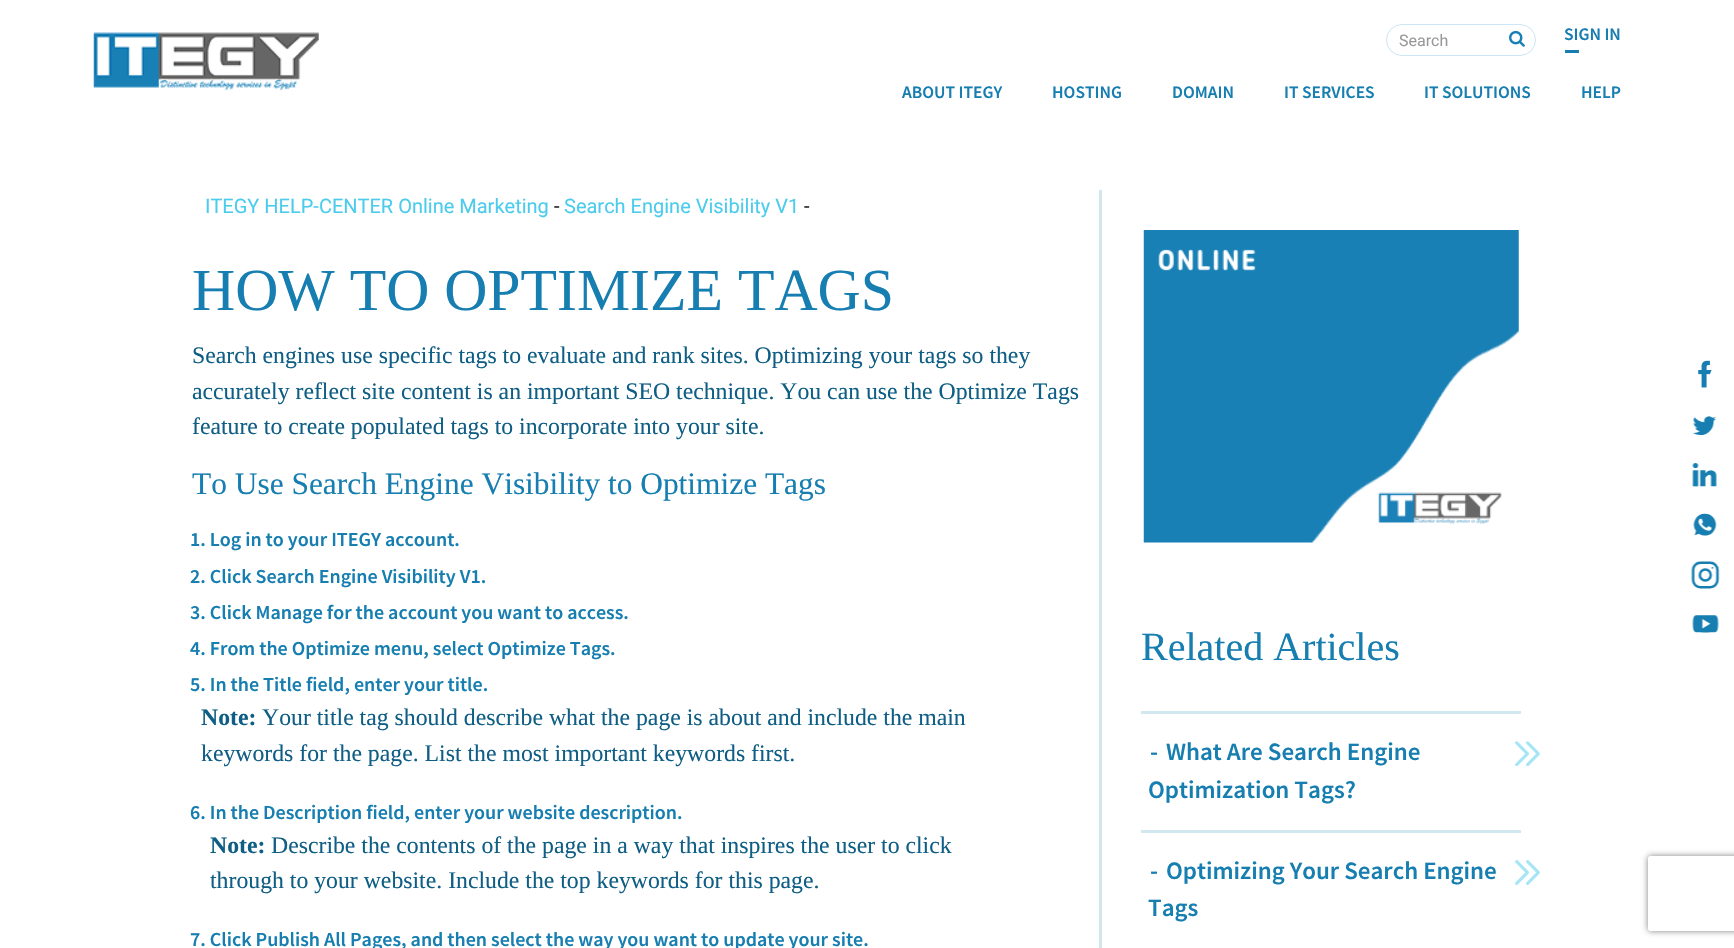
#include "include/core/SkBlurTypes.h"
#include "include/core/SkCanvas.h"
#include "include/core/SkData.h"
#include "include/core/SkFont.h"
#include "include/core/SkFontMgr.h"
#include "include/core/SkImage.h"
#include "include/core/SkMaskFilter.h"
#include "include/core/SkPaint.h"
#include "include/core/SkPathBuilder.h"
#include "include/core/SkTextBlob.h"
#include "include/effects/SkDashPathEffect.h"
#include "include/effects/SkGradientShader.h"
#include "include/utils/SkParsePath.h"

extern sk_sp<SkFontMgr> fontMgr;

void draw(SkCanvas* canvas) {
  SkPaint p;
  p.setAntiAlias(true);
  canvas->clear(SK_ColorWHITE);
  canvas->drawImageRect(SkImages::DeferredFromEncodedData(SkData::MakeFromFileName("images/1.png")), SkRect::MakeLTRB(93, 32, 319, 91), SkSamplingOptions());
  p.setStyle(SkPaint::kStroke_Style);
  p.setStrokeWidth(1);
  p.setColor(SkColorSetRGB(203, 230, 245));
  canvas->drawRoundRect(SkRect::MakeLTRB(1386.5f, 24.5f, 1535.5f, 55.5f), 15.5f, 15.5f, p);
  canvas->drawImageRect(SkImages::DeferredFromEncodedData(SkData::MakeFromFileName("images/2.png")), SkRect::MakeLTRB(1509, 30, 1525, 47), SkSamplingOptions());
  p.setStyle(SkPaint::kFill_Style);
  p.setColor(SkColorSetRGB(22, 126, 176));
  canvas->drawRect(SkRect::MakeLTRB(1565, 50, 1579, 53), p);
  canvas->drawImageRect(SkImages::DeferredFromEncodedData(SkData::MakeFromFileName("images/3.png")), SkRect::MakeLTRB(1698, 360, 1712, 388), SkSamplingOptions());
  canvas->drawImageRect(SkImages::DeferredFromEncodedData(SkData::MakeFromFileName("images/4.png")), SkRect::MakeLTRB(1692, 416, 1717, 435), SkSamplingOptions());
  canvas->drawImageRect(SkImages::DeferredFromEncodedData(SkData::MakeFromFileName("images/5.png")), SkRect::MakeLTRB(1692, 463, 1717, 487), SkSamplingOptions());
  canvas->drawImageRect(SkImages::DeferredFromEncodedData(SkData::MakeFromFileName("images/6.png")), SkRect::MakeLTRB(1693, 513, 1717, 536), SkSamplingOptions());
  canvas->drawImageRect(SkImages::DeferredFromEncodedData(SkData::MakeFromFileName("images/7.png")), SkRect::MakeLTRB(1691, 561, 1720, 589), SkSamplingOptions());
  canvas->drawImageRect(SkImages::DeferredFromEncodedData(SkData::MakeFromFileName("images/8.png")), SkRect::MakeLTRB(1692, 615, 1719, 633), SkSamplingOptions());
  p.setColor(SkColorSetRGB(211, 230, 240));
  canvas->drawRect(SkRect::MakeLTRB(1099, 190, 1102, 948), p);
  canvas->drawImageRect(SkImages::DeferredFromEncodedData(SkData::MakeFromFileName("images/9.png")), SkRect::MakeLTRB(1143, 230, 1519, 543), SkSamplingOptions());
  p.setColor(SkColorSetRGB(211, 231, 240));
  canvas->drawRect(SkRect::MakeLTRB(1141, 711, 1521, 714), p);
  canvas->drawImageRect(SkImages::DeferredFromEncodedData(SkData::MakeFromFileName("images/10.png")), SkRect::MakeLTRB(1515, 741, 1540, 766), SkSamplingOptions());
  canvas->drawRect(SkRect::MakeLTRB(1141, 830, 1521, 833), p);
  canvas->drawImageRect(SkImages::DeferredFromEncodedData(SkData::MakeFromFileName("images/11.png")), SkRect::MakeLTRB(1515, 860, 1540, 885), SkSamplingOptions());
  canvas->save();
  canvas->clipPath(SkPathBuilder(SkPathFillType::kEvenOdd).moveTo(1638, 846).lineTo(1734, 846).lineTo(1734, 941).lineTo(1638, 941).close().moveTo(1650.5f, 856).lineTo(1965.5f, 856).cubicTo(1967, 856, 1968, 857, 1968, 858.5f).lineTo(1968, 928.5f).cubicTo(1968, 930, 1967, 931, 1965.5f, 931).lineTo(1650.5f, 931).cubicTo(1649, 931, 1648, 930, 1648, 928.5f).lineTo(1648, 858.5f).cubicTo(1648, 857, 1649, 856, 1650.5f, 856).close().detach(), true);
  p.setColor(SkColorSetRGB(128, 128, 128));
  p.setMaskFilter(SkMaskFilter::MakeBlur(kNormal_SkBlurStyle, 3));
  canvas->drawRoundRect(SkRect::MakeLTRB(1648, 856, 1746, 931), 2.5f, 2.5f, p);
  p.setMaskFilter(nullptr);
  canvas->restore();
  SkFont font1(fontMgr->matchFamilyStyle("Roboto", SkFontStyle::Normal()), 16);
  font1.setSubpixel(true);
  p.setColor(SkColorSetRGB(153, 153, 153));
  canvas->drawString("Search", 1399, 46, font1, p);
  SkFont font2(fontMgr->matchFamilyStyle("Source Sans Pro", SkFontStyle(600, SkFontStyle::kNormal_Width, SkFontStyle::kUpright_Slant)), 17.5f);
  font2.setSubpixel(true);
  p.setColor(SkColorSetRGB(22, 126, 176));
  canvas->drawString("SIGN IN", 1564, 40, font2, p);
  canvas->drawString("ABOUT ITEGY", 902, 98, font2, p);
  canvas->drawString("HOSTING", 1052, 98, font2, p);
  canvas->drawString("DOMAIN", 1172, 98, font2, p);
  canvas->drawString("IT SERVICES", 1284, 98, font2, p);
  canvas->drawString("IT SOLUTIONS", 1424, 98, font2, p);
  canvas->drawString("HELP", 1581, 98, font2, p);
  SkFont font3(fontMgr->matchFamilyStyle("Roboto", SkFontStyle::Normal()), 20);
  font3.setSubpixel(true);
  p.setColor(SkColorSetRGB(75, 204, 236));
  canvas->drawString("ITEGY HELP-CENTER Online Marketing", 205, 213, font3, p);
  p.setColor(SkColorSetRGB(33, 37, 41));
  canvas->drawString("-", 554, 213, font3, p);
  p.setColor(SkColorSetRGB(75, 204, 236));
  canvas->drawString("Search Engine Visibility V1", 564, 213, font3, p);
  p.setColor(SkColorSetRGB(33, 37, 41));
  canvas->drawString("-", 804, 213, font3, p);
  SkFont font4(fontMgr->matchFamilyStyle("Liberation Serif", SkFontStyle::Normal()), 59.75f);
  font4.setSubpixel(true);
  p.setColor(SkColorSetRGB(22, 126, 176));
  canvas->drawString("HOW TO OPTIMIZE TAGS", 192, 310, font4, p);
  SkFont font5(fontMgr->matchFamilyStyle("Liberation Serif", SkFontStyle::Normal()), 23.75f);
  font5.setSubpixel(true);
  p.setColor(SkColorSetRGB(15, 94, 133));
  canvas->drawString("Search engines use specific tags to evaluate and rank sites. Optimizing your tags so they", 192, 363, font5, p);
  canvas->drawString("accurately reflect site content is an important SEO technique. You can use the Optimize Tags", 192, 399, font5, p);
  canvas->drawString("feature to create populated tags to incorporate into your site.", 192, 434, font5, p);
  SkFont font6(fontMgr->matchFamilyStyle("Liberation Serif", SkFontStyle::Normal()), 31.4f);
  font6.setSubpixel(true);
  p.setColor(SkColorSetRGB(22, 126, 176));
  canvas->drawString("To Use Search Engine Visibility to Optimize Tags", 192, 494, font6, p);
  SkFont font7(fontMgr->matchFamilyStyle("Source Sans Pro", SkFontStyle(600, SkFontStyle::kNormal_Width, SkFontStyle::kUpright_Slant)), 20);
  font7.setSubpixel(true);
  canvas->drawString("1. Log in to your ITEGY account.", 190, 546, font7, p);
  canvas->drawString("2. Click Search Engine Visibility V1.", 190, 583, font7, p);
  canvas->drawString("3. Click Manage for the account you want to access.", 190, 619, font7, p);
  canvas->drawString("4. From the Optimize menu, select Optimize Tags.", 190, 655, font7, p);
  canvas->drawString("5. In the Title field, enter your title.", 190, 691, font7, p);
  SkFont font8(fontMgr->matchFamilyStyle("Liberation Serif", SkFontStyle::Bold()), 23.75f);
  font8.setSubpixel(true);
  p.setColor(SkColorSetRGB(15, 94, 133));
  canvas->drawString("Note:", 201, 725, font8, p);
  canvas->drawString("Your title tag should describe what the page is about and include the main", 262, 725, font5, p);
  canvas->drawString("keywords for the page. List the most important keywords first.", 201, 761, font5, p);
  p.setColor(SkColorSetRGB(22, 126, 176));
  canvas->drawString("6. In the Description field, enter your website description.", 190, 819, font7, p);
  p.setColor(SkColorSetRGB(15, 94, 133));
  canvas->drawString("Note:", 210, 853, font8, p);
  canvas->drawString("Describe the contents of the page in a way that inspires the user to click", 271, 853, font5, p);
  canvas->drawString("through to your website. Include the top keywords for this page.", 210, 888, font5, p);
  p.setColor(SkColorSetRGB(22, 126, 176));
  canvas->drawString("7. Click Publish All Pages, and then select the way you want to update your site.", 190, 946, font7, p);
  SkFont font9(fontMgr->matchFamilyStyle("Liberation Serif", SkFontStyle::Normal()), 40);
  font9.setSubpixel(true);
  canvas->drawString("Related Articles", 1141, 660, font9, p);
  SkFont font10(fontMgr->matchFamilyStyle("Source Sans Pro", SkFontStyle(600, SkFontStyle::kNormal_Width, SkFontStyle::kUpright_Slant)), 25);
  font10.setSubpixel(true);
  canvas->drawString("-", 1150, 760, font10, p);
  canvas->drawString("What Are Search Engine", 1166, 760, font10, p);
  canvas->drawString("Optimization Tags?", 1148, 798, font10, p);
  canvas->drawString("-", 1150, 879, font10, p);
  canvas->drawString("Optimizing Your Search Engine", 1166, 879, font10, p);
  canvas->drawString("Tags", 1148, 916, font10, p);
}
